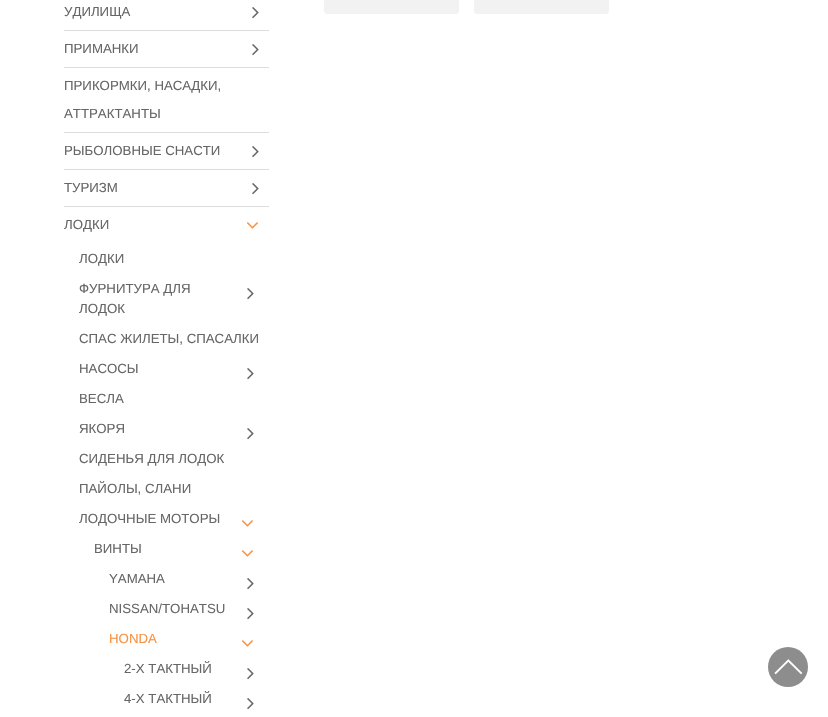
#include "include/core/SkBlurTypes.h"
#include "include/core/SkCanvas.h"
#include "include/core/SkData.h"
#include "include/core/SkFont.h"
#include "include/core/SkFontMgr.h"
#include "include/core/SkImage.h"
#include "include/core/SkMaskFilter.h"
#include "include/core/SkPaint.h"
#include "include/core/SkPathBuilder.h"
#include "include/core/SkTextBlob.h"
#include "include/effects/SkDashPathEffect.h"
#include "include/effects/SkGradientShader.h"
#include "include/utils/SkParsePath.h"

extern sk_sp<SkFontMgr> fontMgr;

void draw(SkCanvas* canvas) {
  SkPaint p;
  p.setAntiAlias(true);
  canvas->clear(SK_ColorWHITE);
  p.setColor(SkColorSetRGB(221, 221, 221));
  canvas->drawRect(SkRect::MakeLTRB(64, 30, 269, 31), p);
  canvas->drawImageRect(SkImages::DeferredFromEncodedData(SkData::MakeFromFileName("images/1.png")), SkRect::MakeLTRB(252, 7, 259, 19), SkSamplingOptions());
  canvas->drawRect(SkRect::MakeLTRB(64, 67, 269, 68), p);
  canvas->drawImageRect(SkImages::DeferredFromEncodedData(SkData::MakeFromFileName("images/1.png")), SkRect::MakeLTRB(252, 44, 259, 56), SkSamplingOptions());
  canvas->drawRect(SkRect::MakeLTRB(64, 132, 269, 133), p);
  canvas->drawRect(SkRect::MakeLTRB(64, 169, 269, 170), p);
  canvas->drawImageRect(SkImages::DeferredFromEncodedData(SkData::MakeFromFileName("images/1.png")), SkRect::MakeLTRB(252, 146, 259, 158), SkSamplingOptions());
  canvas->drawRect(SkRect::MakeLTRB(64, 206, 269, 207), p);
  canvas->drawImageRect(SkImages::DeferredFromEncodedData(SkData::MakeFromFileName("images/1.png")), SkRect::MakeLTRB(252, 183, 259, 195), SkSamplingOptions());
  canvas->drawImageRect(SkImages::DeferredFromEncodedData(SkData::MakeFromFileName("images/2.png")), SkRect::MakeLTRB(246, 222, 258, 229), SkSamplingOptions());
  canvas->drawImageRect(SkImages::DeferredFromEncodedData(SkData::MakeFromFileName("images/1.png")), SkRect::MakeLTRB(247, 288, 254, 300), SkSamplingOptions());
  canvas->drawImageRect(SkImages::DeferredFromEncodedData(SkData::MakeFromFileName("images/1.png")), SkRect::MakeLTRB(247, 368, 254, 380), SkSamplingOptions());
  canvas->drawImageRect(SkImages::DeferredFromEncodedData(SkData::MakeFromFileName("images/1.png")), SkRect::MakeLTRB(247, 428, 254, 440), SkSamplingOptions());
  canvas->drawImageRect(SkImages::DeferredFromEncodedData(SkData::MakeFromFileName("images/2.png")), SkRect::MakeLTRB(241, 520, 253, 527), SkSamplingOptions());
  canvas->drawImageRect(SkImages::DeferredFromEncodedData(SkData::MakeFromFileName("images/2.png")), SkRect::MakeLTRB(241, 550, 253, 557), SkSamplingOptions());
  canvas->drawImageRect(SkImages::DeferredFromEncodedData(SkData::MakeFromFileName("images/1.png")), SkRect::MakeLTRB(247, 578, 254, 590), SkSamplingOptions());
  canvas->drawImageRect(SkImages::DeferredFromEncodedData(SkData::MakeFromFileName("images/1.png")), SkRect::MakeLTRB(247, 608, 254, 620), SkSamplingOptions());
  canvas->drawImageRect(SkImages::DeferredFromEncodedData(SkData::MakeFromFileName("images/2.png")), SkRect::MakeLTRB(241, 640, 253, 647), SkSamplingOptions());
  canvas->drawImageRect(SkImages::DeferredFromEncodedData(SkData::MakeFromFileName("images/1.png")), SkRect::MakeLTRB(247, 668, 254, 680), SkSamplingOptions());
  canvas->drawImageRect(SkImages::DeferredFromEncodedData(SkData::MakeFromFileName("images/1.png")), SkRect::MakeLTRB(247, 698, 254, 710), SkSamplingOptions());
  p.setColor(SkColorSetRGB(242, 242, 242));
  canvas->drawPath(SkPathBuilder().moveTo(324, -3).lineTo(459, -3).lineTo(459, 11).cubicTo(459, 12.5f, 457.5f, 14, 456, 14).lineTo(327, 14).cubicTo(325.5f, 14, 324, 12.5f, 324, 11).close().detach(), p);
  canvas->drawPath(SkPathBuilder().moveTo(474, -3).lineTo(609, -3).lineTo(609, 11).cubicTo(609, 12.5f, 607.5f, 14, 606, 14).lineTo(477, 14).cubicTo(475.5f, 14, 474, 12.5f, 474, 11).close().detach(), p);
  p.setColor(SkColorSetRGB(141, 141, 141));
  canvas->drawCircle(788, 667, 20, p);
  canvas->drawImageRect(SkImages::DeferredFromEncodedData(SkData::MakeFromFileName("images/3.png")), SkRect::MakeLTRB(774, 659, 803, 675), SkSamplingOptions());
  SkFont font1(fontMgr->matchFamilyStyle("Liberation Sans", SkFontStyle::Normal()), 13.25f);
  font1.setSubpixel(true);
  p.setColor(SkColorSetRGB(102, 102, 102));
  canvas->drawString("УДИЛИЩА", 64, 16, font1, p);
  canvas->drawString("ПРИМАНКИ", 64, 53, font1, p);
  canvas->drawString("ПРИКОРМКИ, НАСАДКИ,", 64, 90, font1, p);
  canvas->drawString("АТТРАКТАНТЫ", 64, 118, font1, p);
  canvas->drawString("РЫБОЛОВНЫЕ СНАСТИ", 64, 155, font1, p);
  canvas->drawString("ТУРИЗМ", 64, 192, font1, p);
  canvas->drawString("ЛОДКИ", 64, 229, font1, p);
  canvas->drawString("ЛОДКИ", 79, 263, font1, p);
  canvas->drawString("ФУРНИТУРА ДЛЯ", 79, 293, font1, p);
  canvas->drawString("ЛОДОК", 79, 313, font1, p);
  canvas->drawString("СПАС ЖИЛЕТЫ, СПАСАЛКИ", 79, 343, font1, p);
  canvas->drawString("НАСОСЫ", 79, 373, font1, p);
  canvas->drawString("ВЕСЛА", 79, 403, font1, p);
  canvas->drawString("ЯКОРЯ", 79, 433, font1, p);
  canvas->drawString("СИДЕНЬЯ ДЛЯ ЛОДОК", 79, 463, font1, p);
  canvas->drawString("ПАЙОЛЫ, СЛАНИ", 79, 493, font1, p);
  canvas->drawString("ЛОДОЧНЫЕ МОТОРЫ", 79, 523, font1, p);
  canvas->drawString("ВИНТЫ", 94, 553, font1, p);
  canvas->drawString("YAMAHA", 109, 583, font1, p);
  canvas->drawString("NISSAN/TOHATSU", 109, 613, font1, p);
  p.setColor(SkColorSetRGB(247, 146, 66));
  canvas->drawString("HONDA", 109, 643, font1, p);
  p.setColor(SkColorSetRGB(102, 102, 102));
  canvas->drawString("2-Х ТАКТНЫЙ", 124, 673, font1, p);
  canvas->drawString("4-Х ТАКТНЫЙ", 124, 703, font1, p);
}
